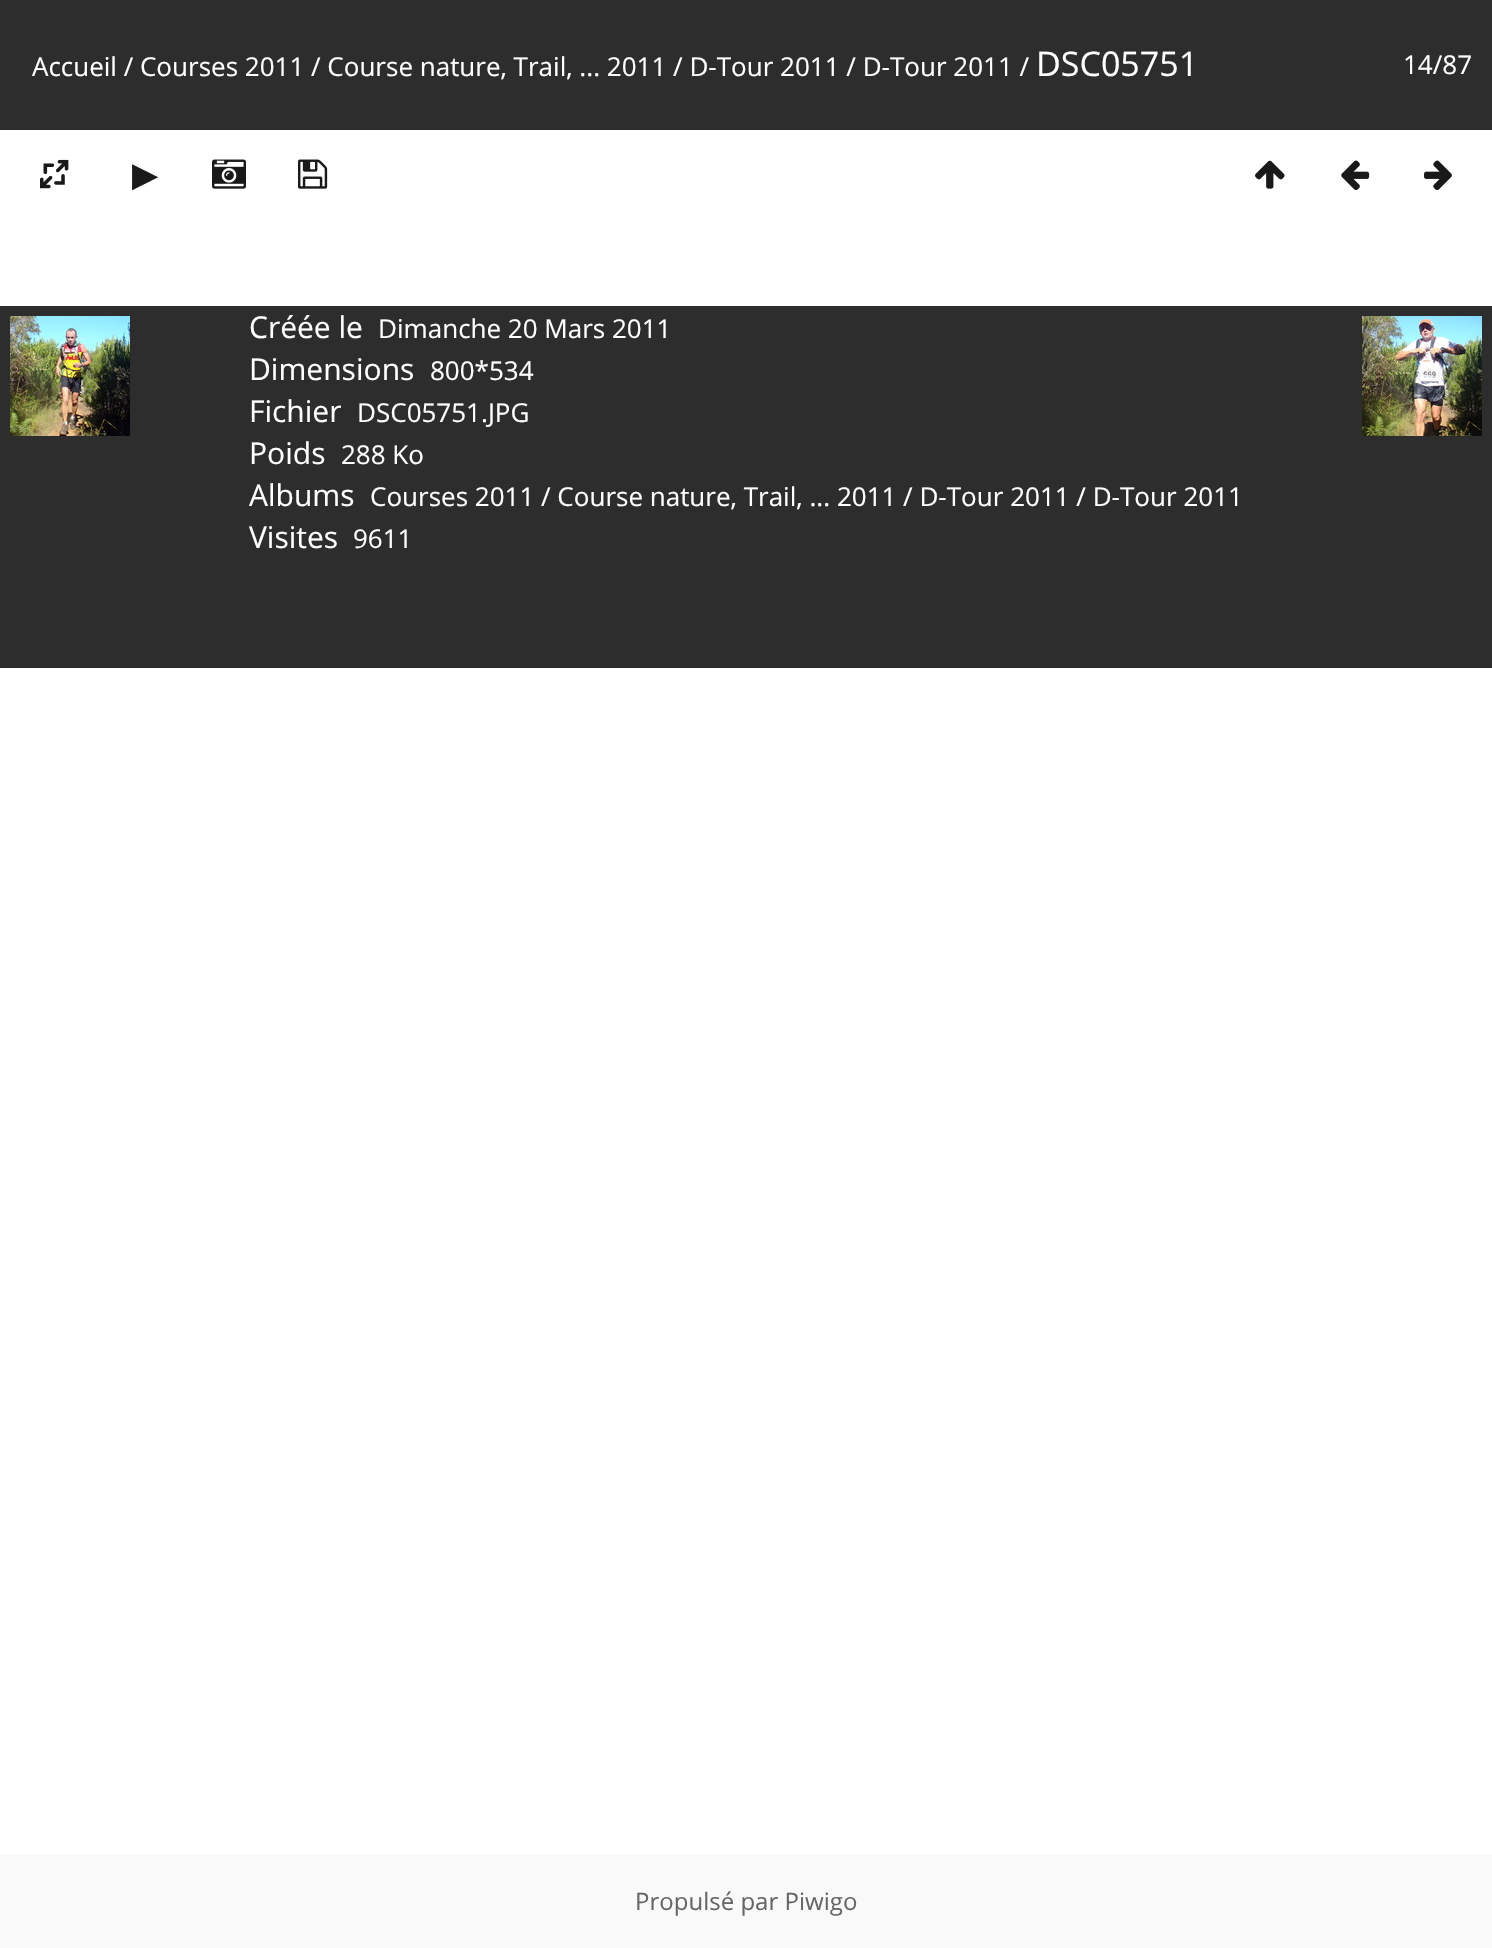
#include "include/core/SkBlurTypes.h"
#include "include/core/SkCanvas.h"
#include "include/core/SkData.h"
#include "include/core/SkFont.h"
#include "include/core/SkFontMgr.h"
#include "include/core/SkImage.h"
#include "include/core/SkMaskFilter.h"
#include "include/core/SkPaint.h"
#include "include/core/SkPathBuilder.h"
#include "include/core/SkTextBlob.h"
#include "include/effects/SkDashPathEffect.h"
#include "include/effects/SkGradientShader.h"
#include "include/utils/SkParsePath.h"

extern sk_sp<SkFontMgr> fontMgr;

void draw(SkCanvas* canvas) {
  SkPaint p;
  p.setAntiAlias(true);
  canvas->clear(SK_ColorWHITE);
  p.setColor(SkColorSetRGB(45, 45, 45));
  canvas->drawRect(SkRect::MakeLTRB(0, 0, 1492, 130), p);
  canvas->drawImageRect(SkImages::DeferredFromEncodedData(SkData::MakeFromFileName("images/1.png")), SkRect::MakeLTRB(40, 159, 69, 189), SkSamplingOptions());
  canvas->drawImageRect(SkImages::DeferredFromEncodedData(SkData::MakeFromFileName("images/2.png")), SkRect::MakeLTRB(212, 159, 246, 189), SkSamplingOptions());
  canvas->drawImageRect(SkImages::DeferredFromEncodedData(SkData::MakeFromFileName("images/3.png")), SkRect::MakeLTRB(298, 159, 328, 189), SkSamplingOptions());
  canvas->drawImageRect(SkImages::DeferredFromEncodedData(SkData::MakeFromFileName("images/4.png")), SkRect::MakeLTRB(1255, 160, 1285, 189), SkSamplingOptions());
  canvas->drawImageRect(SkImages::DeferredFromEncodedData(SkData::MakeFromFileName("images/5.png")), SkRect::MakeLTRB(1341, 160, 1370, 190), SkSamplingOptions());
  canvas->drawImageRect(SkImages::DeferredFromEncodedData(SkData::MakeFromFileName("images/6.png")), SkRect::MakeLTRB(1424, 160, 1452, 191), SkSamplingOptions());
  canvas->drawRect(SkRect::MakeLTRB(0, 306, 1492, 668), p);
  canvas->drawImageRect(SkImages::DeferredFromEncodedData(SkData::MakeFromFileName("images/7.png")), SkRect::MakeLTRB(10, 316, 130, 436), SkSamplingOptions());
  canvas->drawImageRect(SkImages::DeferredFromEncodedData(SkData::MakeFromFileName("images/8.png")), SkRect::MakeLTRB(1362, 316, 1482, 436), SkSamplingOptions());
  p.setColor(SkColorSetRGB(249, 249, 249));
  canvas->drawRect(SkRect::MakeLTRB(0, 1854, 1492, 1948), p);
  SkFont font1(fontMgr->matchFamilyStyle("Open Sans", SkFontStyle::Normal()), 26);
  font1.setSubpixel(true);
  p.setColor(SK_ColorWHITE);
  canvas->drawString("Accueil / Courses 2011 / Course nature, Trail, ... 2011 / D-Tour 2011 / D-Tour 2011 /", 32, 76, font1, p);
  SkFont font2(fontMgr->matchFamilyStyle("Open Sans", SkFontStyle::Normal()), 34);
  font2.setSubpixel(true);
  canvas->drawString("DSC05751", 1036, 76, font2, p);
  canvas->drawString("14/87", 1403, 74, font1, p);
  SkFont font3(fontMgr->matchFamilyStyle("DejaVu Sans", SkFontStyle::Normal()), 34);
  font3.setSubpixel(true);
  p.setColor(SkColorSetRGB(26, 26, 26));
  canvas->drawString("▶", 132, 186, font3, p);
  SkFont font4(fontMgr->matchFamilyStyle("Open Sans", SkFontStyle::Normal()), 30);
  font4.setSubpixel(true);
  p.setColor(SK_ColorWHITE);
  canvas->drawString("Créée le", 249, 338, font4, p);
  canvas->drawString("Dimanche 20 Mars 2011", 378, 338, font1, p);
  canvas->drawString("Dimensions", 249, 380, font4, p);
  canvas->drawString("800*534", 430, 380, font1, p);
  canvas->drawString("Fichier", 249, 422, font4, p);
  canvas->drawString("DSC05751.JPG", 357, 422, font1, p);
  canvas->drawString("Poids", 249, 464, font4, p);
  canvas->drawString("288 Ko", 341, 464, font1, p);
  canvas->drawString("Albums", 249, 506, font4, p);
  canvas->drawString("Courses 2011 / Course nature, Trail, ... 2011 / D-Tour 2011 / D-Tour 2011", 370, 506, font1, p);
  canvas->drawString("Visites", 249, 548, font4, p);
  canvas->drawString("9611", 353, 548, font1, p);
  SkFont font5(fontMgr->matchFamilyStyle("Open Sans", SkFontStyle::Normal()), 24);
  font5.setSubpixel(true);
  p.setColor(SkColorSetRGB(102, 102, 102));
  canvas->drawString("Propulsé par Piwigo", 635, 1910, font5, p);
}
